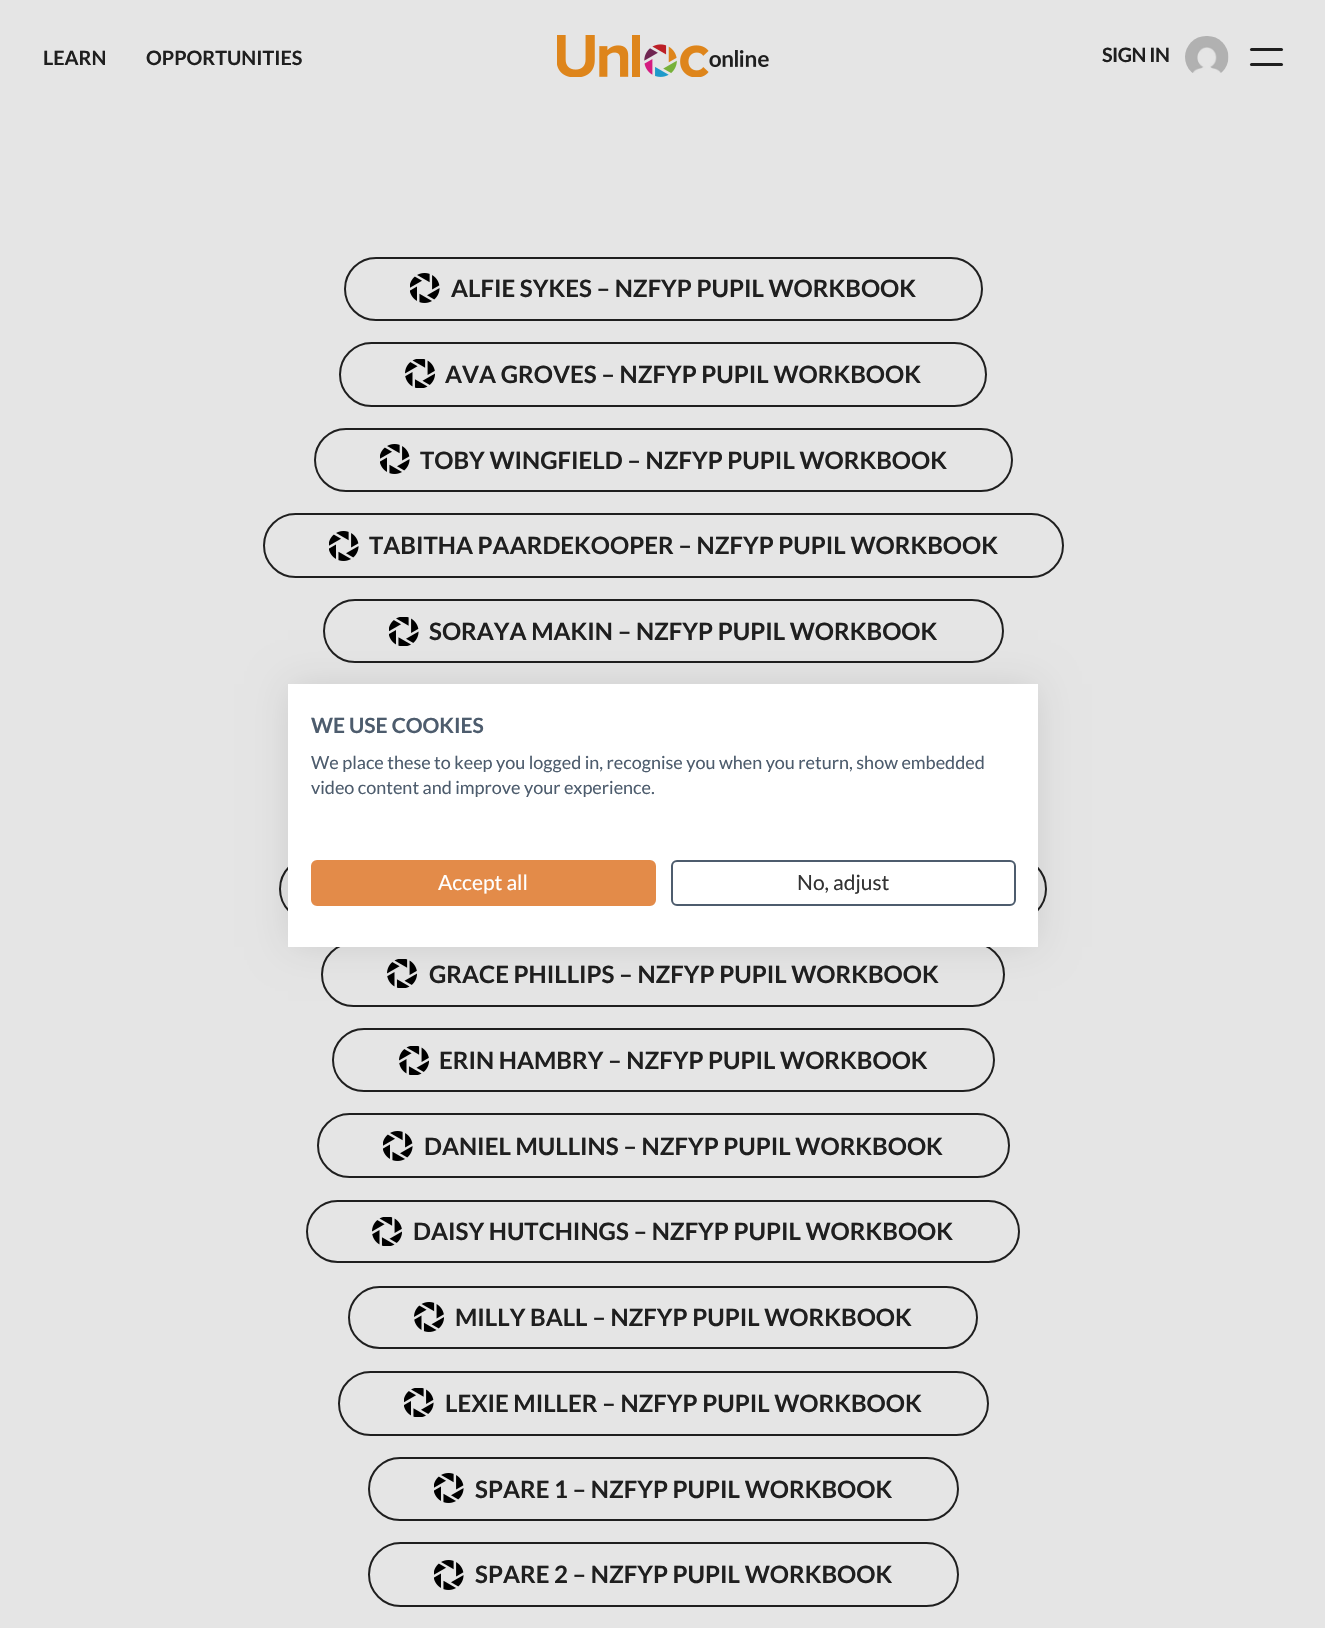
#include "include/core/SkBlurTypes.h"
#include "include/core/SkCanvas.h"
#include "include/core/SkData.h"
#include "include/core/SkFont.h"
#include "include/core/SkFontMgr.h"
#include "include/core/SkImage.h"
#include "include/core/SkMaskFilter.h"
#include "include/core/SkPaint.h"
#include "include/core/SkPathBuilder.h"
#include "include/core/SkTextBlob.h"
#include "include/effects/SkDashPathEffect.h"
#include "include/effects/SkGradientShader.h"
#include "include/utils/SkParsePath.h"

extern sk_sp<SkFontMgr> fontMgr;

void draw(SkCanvas* canvas) {
  SkPaint p;
  p.setAntiAlias(true);
  auto spacedText = [&](const char* s, float x, float y, const SkFont& font, const SkPaint& ink, float letter, float word) {
    std::vector<SkGlyphID> glyphs(font.countText(s, strlen(s), SkTextEncoding::kUTF8));
    std::vector<float> xs(glyphs.size());
    font.textToGlyphs(s, strlen(s), SkTextEncoding::kUTF8, glyphs);
    font.getXPos(glyphs, xs, x);
    float extra = 0;
    for (size_t i = 0; i < glyphs.size(); i++) {
      xs[i] += extra;
      extra += letter + word * (glyphs[i] == font.unicharToGlyph(' '));
    }
    canvas->drawTextBlob(SkTextBlob::MakeFromPosHGlyphs(glyphs, xs, y, font), 0, 0, ink);
  };
  canvas->clear(SkColorSetRGB(229, 229, 229));
  canvas->drawImageRect(SkImages::DeferredFromEncodedData(SkData::MakeFromFileName("images/1.png")), SkRect::MakeLTRB(557, 35, 769, 77), SkSamplingOptions());
  canvas->drawImageRect(SkImages::DeferredFromEncodedData(SkData::MakeFromFileName("images/2.png")), SkRect::MakeLTRB(1185, 36, 1229, 73), SkSamplingOptions());
  p.setColor(SkColorSetRGB(31, 31, 31));
  canvas->drawRoundRect(SkRect::MakeLTRB(1250, 48, 1283, 51), 1.5f, 1.5f, p);
  canvas->drawRoundRect(SkRect::MakeLTRB(1250, 63, 1283, 66), 1.5f, 1.5f, p);
  p.setStyle(SkPaint::kStroke_Style);
  p.setStrokeWidth(2);
  canvas->drawRoundRect(SkRect::MakeLTRB(345, 258, 982, 320), 31, 31, p);
  canvas->drawImageRect(SkImages::DeferredFromEncodedData(SkData::MakeFromFileName("images/3.png")), SkRect::MakeLTRB(410, 273, 440, 303), SkSamplingOptions());
  canvas->drawRoundRect(SkRect::MakeLTRB(340, 343, 986, 406), 31.5f, 31.5f, p);
  canvas->drawImageRect(SkImages::DeferredFromEncodedData(SkData::MakeFromFileName("images/4.png")), SkRect::MakeLTRB(405, 359, 435, 388), SkSamplingOptions());
  canvas->drawRoundRect(SkRect::MakeLTRB(315, 429, 1012, 491), 31, 31, p);
  canvas->drawImageRect(SkImages::DeferredFromEncodedData(SkData::MakeFromFileName("images/3.png")), SkRect::MakeLTRB(380, 444, 410, 474), SkSamplingOptions());
  canvas->drawRoundRect(SkRect::MakeLTRB(264, 514, 1063, 577), 31.5f, 31.5f, p);
  canvas->drawImageRect(SkImages::DeferredFromEncodedData(SkData::MakeFromFileName("images/3.png")), SkRect::MakeLTRB(329, 531, 359, 561), SkSamplingOptions());
  canvas->drawRoundRect(SkRect::MakeLTRB(324, 600, 1003, 662), 31, 31, p);
  canvas->drawImageRect(SkImages::DeferredFromEncodedData(SkData::MakeFromFileName("images/5.png")), SkRect::MakeLTRB(389, 617, 419, 646), SkSamplingOptions());
  canvas->drawRoundRect(SkRect::MakeLTRB(280, 858, 1046, 920), 31, 31, p);
  canvas->drawRoundRect(SkRect::MakeLTRB(322, 943, 1004, 1006), 31.5f, 31.5f, p);
  canvas->drawImageRect(SkImages::DeferredFromEncodedData(SkData::MakeFromFileName("images/4.png")), SkRect::MakeLTRB(387, 959, 417, 988), SkSamplingOptions());
  canvas->drawRoundRect(SkRect::MakeLTRB(333, 1029, 994, 1091), 31, 31, p);
  canvas->drawImageRect(SkImages::DeferredFromEncodedData(SkData::MakeFromFileName("images/4.png")), SkRect::MakeLTRB(399, 1046, 429, 1075), SkSamplingOptions());
  canvas->drawRoundRect(SkRect::MakeLTRB(318, 1114, 1009, 1177), 31.5f, 31.5f, p);
  canvas->drawImageRect(SkImages::DeferredFromEncodedData(SkData::MakeFromFileName("images/3.png")), SkRect::MakeLTRB(383, 1131, 413, 1161), SkSamplingOptions());
  canvas->drawRoundRect(SkRect::MakeLTRB(307, 1201, 1019, 1262), 30.5f, 30.5f, p);
  canvas->drawImageRect(SkImages::DeferredFromEncodedData(SkData::MakeFromFileName("images/4.png")), SkRect::MakeLTRB(372, 1217, 402, 1246), SkSamplingOptions());
  canvas->drawRoundRect(SkRect::MakeLTRB(349, 1287, 977, 1348), 30.5f, 30.5f, p);
  canvas->drawImageRect(SkImages::DeferredFromEncodedData(SkData::MakeFromFileName("images/6.png")), SkRect::MakeLTRB(414, 1302, 444, 1332), SkSamplingOptions());
  canvas->drawRoundRect(SkRect::MakeLTRB(339, 1372, 988, 1435), 31.5f, 31.5f, p);
  canvas->drawImageRect(SkImages::DeferredFromEncodedData(SkData::MakeFromFileName("images/5.png")), SkRect::MakeLTRB(404, 1388, 434, 1417), SkSamplingOptions());
  canvas->drawRoundRect(SkRect::MakeLTRB(369, 1458, 958, 1520), 31, 31, p);
  canvas->drawImageRect(SkImages::DeferredFromEncodedData(SkData::MakeFromFileName("images/3.png")), SkRect::MakeLTRB(434, 1473, 464, 1503), SkSamplingOptions());
  canvas->drawRoundRect(SkRect::MakeLTRB(369, 1543, 958, 1606), 31.5f, 31.5f, p);
  canvas->drawImageRect(SkImages::DeferredFromEncodedData(SkData::MakeFromFileName("images/3.png")), SkRect::MakeLTRB(434, 1560, 464, 1590), SkSamplingOptions());
  p.setStyle(SkPaint::kFill_Style);
  p.setColor(SkColorSetARGB(26, 0, 0, 0));
  p.setMaskFilter(SkMaskFilter::MakeBlur(kNormal_SkBlurStyle, 18));
  canvas->drawRect(SkRect::MakeLTRB(288, 684, 1038, 947), p);
  p.setMaskFilter(nullptr);
  p.setColor(SK_ColorWHITE);
  canvas->drawRect(SkRect::MakeLTRB(288, 684, 1038, 947), p);
  p.setColor(SkColorSetRGB(227, 139, 73));
  canvas->drawRoundRect(SkRect::MakeLTRB(312, 861, 655, 905), 5, 5, p);
  p.setStyle(SkPaint::kStroke_Style);
  canvas->drawRoundRect(SkRect::MakeLTRB(312, 861, 655, 905), 5, 5, p);
  p.setColor(SkColorSetRGB(77, 92, 109));
  canvas->drawRoundRect(SkRect::MakeLTRB(672, 861, 1015, 905), 5, 5, p);
  SkFont font1(fontMgr->matchFamilyStyle("Lato", SkFontStyle::Bold()), 19.75f);
  font1.setSubpixel(true);
  p.setStyle(SkPaint::kFill_Style);
  p.setColor(SkColorSetRGB(31, 31, 31));
  canvas->drawString("LEARN", 43, 65, font1, p);
  canvas->drawString("OPPORTUNITIES", 146, 65, font1, p);
  spacedText("SIGN IN", 1102, 62, font1, p, -0.5f, 0);
  SkFont font2(fontMgr->matchFamilyStyle("Lato", SkFontStyle::Bold()), 24);
  font2.setSubpixel(true);
  canvas->drawString("ALFIE SYKES – NZFYP PUPIL WORKBOOK", 451, 297, font2, p);
  canvas->drawString("AVA GROVES – NZFYP PUPIL WORKBOOK", 445, 383, font2, p);
  canvas->drawString("TOBY WINGFIELD – NZFYP PUPIL WORKBOOK", 420, 469, font2, p);
  canvas->drawString("TABITHA PAARDEKOOPER – NZFYP PUPIL WORKBOOK", 369, 554, font2, p);
  canvas->drawString("SORAYA MAKIN – NZFYP PUPIL WORKBOOK", 429, 640, font2, p);
  canvas->drawString("GRACE PHILLIPS – NZFYP PUPIL WORKBOOK", 429, 983, font2, p);
  canvas->drawString("ERIN HAMBRY – NZFYP PUPIL WORKBOOK", 439, 1069, font2, p);
  canvas->drawString("DANIEL MULLINS – NZFYP PUPIL WORKBOOK", 424, 1155, font2, p);
  canvas->drawString("DAISY HUTCHINGS – NZFYP PUPIL WORKBOOK", 413, 1240, font2, p);
  canvas->drawString("MILLY BALL – NZFYP PUPIL WORKBOOK", 455, 1326, font2, p);
  canvas->drawString("LEXIE MILLER – NZFYP PUPIL WORKBOOK", 445, 1412, font2, p);
  canvas->drawString("SPARE 1 – NZFYP PUPIL WORKBOOK", 475, 1498, font2, p);
  canvas->drawString("SPARE 2 – NZFYP PUPIL WORKBOOK", 475, 1583, font2, p);
  SkFont font3(fontMgr->matchFamilyStyle("Lato", SkFontStyle::Bold()), 21);
  font3.setSubpixel(true);
  p.setColor(SkColorSetRGB(77, 92, 109));
  canvas->drawString("WE USE COOKIES", 311, 733, font3, p);
  SkFont font4(fontMgr->matchFamilyStyle("Lato", SkFontStyle::Normal()), 18);
  font4.setSubpixel(true);
  canvas->drawString("We place these to keep you logged in, recognise you when you return, show embedded", 311, 769, font4, p);
  canvas->drawString("video content and improve your experience.", 311, 794, font4, p);
  SkFont font5(fontMgr->matchFamilyStyle("Lato", SkFontStyle::Normal()), 21);
  font5.setSubpixel(true);
  p.setColor(SK_ColorWHITE);
  canvas->drawString("Accept all", 438, 890, font5, p);
  p.setColor(SkColorSetRGB(51, 51, 51));
  canvas->drawString("No, adjust", 797, 890, font5, p);
}
